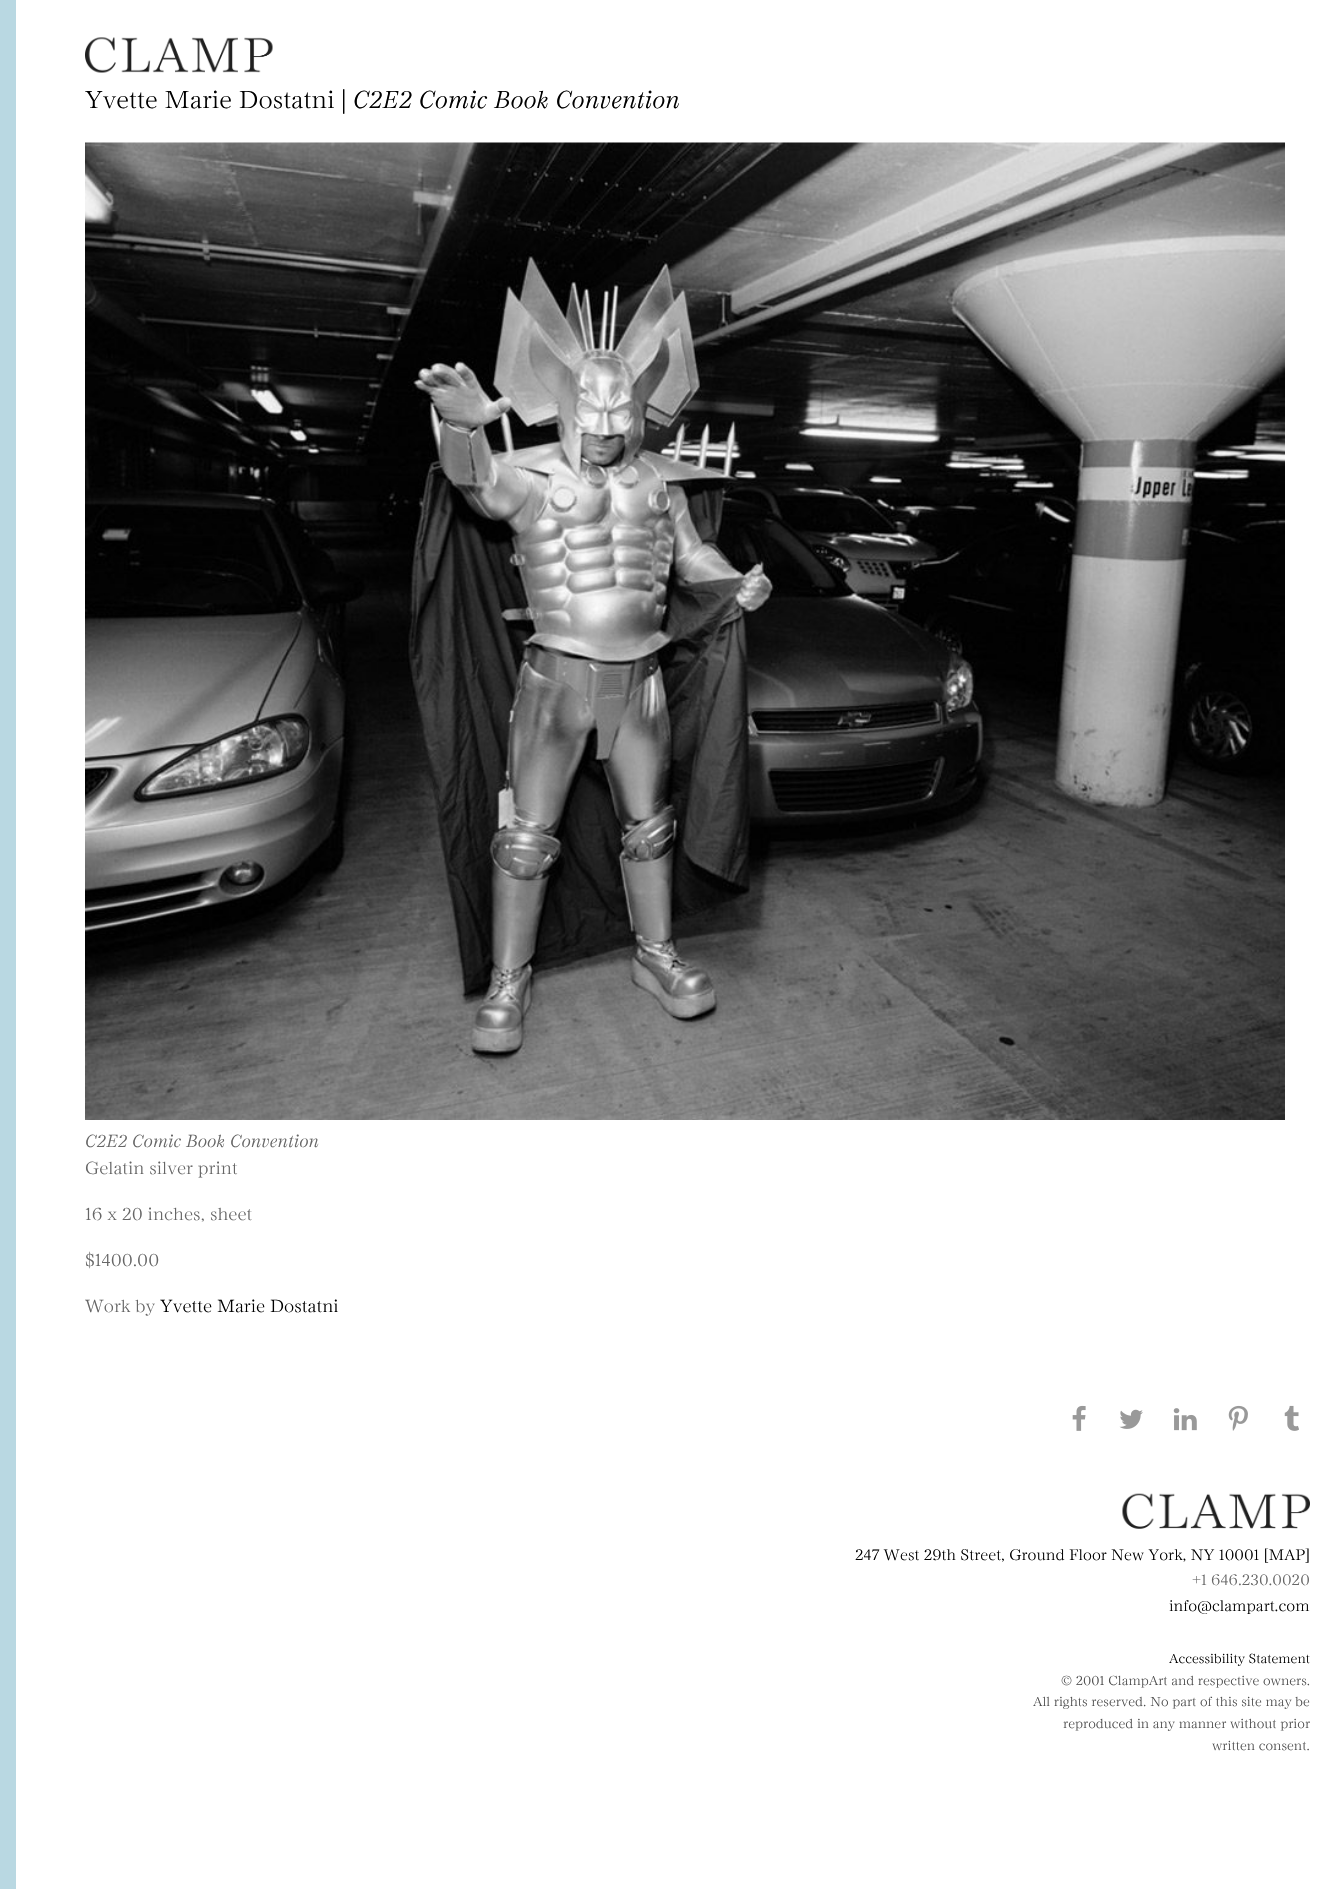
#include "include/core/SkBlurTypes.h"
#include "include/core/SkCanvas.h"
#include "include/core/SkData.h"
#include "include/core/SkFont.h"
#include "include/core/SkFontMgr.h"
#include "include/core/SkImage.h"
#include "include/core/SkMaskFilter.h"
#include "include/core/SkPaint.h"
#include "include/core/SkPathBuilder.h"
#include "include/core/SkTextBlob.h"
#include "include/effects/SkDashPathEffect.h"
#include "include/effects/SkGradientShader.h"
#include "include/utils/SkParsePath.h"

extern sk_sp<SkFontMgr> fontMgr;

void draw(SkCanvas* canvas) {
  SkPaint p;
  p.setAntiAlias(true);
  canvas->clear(SK_ColorWHITE);
  p.setColor(SkColorSetRGB(185, 216, 226));
  canvas->drawRect(SkRect::MakeLTRB(0, 0, 16, 1889), p);
  canvas->drawImageRect(SkImages::DeferredFromEncodedData(SkData::MakeFromFileName("images/1.png")), SkRect::MakeLTRB(85, 37, 273, 73), SkSamplingOptions());
  canvas->drawImageRect(SkImages::DeferredFromEncodedData(SkData::MakeFromFileName("images/2.png")), SkRect::MakeLTRB(85, 142, 1285, 1120), SkSamplingOptions());
  canvas->drawImageRect(SkImages::DeferredFromEncodedData(SkData::MakeFromFileName("images/3.png")), SkRect::MakeLTRB(1072, 1405, 1086, 1431), SkSamplingOptions());
  canvas->drawImageRect(SkImages::DeferredFromEncodedData(SkData::MakeFromFileName("images/4.png")), SkRect::MakeLTRB(1119, 1409, 1143, 1429), SkSamplingOptions());
  canvas->drawImageRect(SkImages::DeferredFromEncodedData(SkData::MakeFromFileName("images/5.png")), SkRect::MakeLTRB(1173, 1408, 1197, 1431), SkSamplingOptions());
  canvas->drawImageRect(SkImages::DeferredFromEncodedData(SkData::MakeFromFileName("images/6.png")), SkRect::MakeLTRB(1228, 1405, 1248, 1431), SkSamplingOptions());
  canvas->drawImageRect(SkImages::DeferredFromEncodedData(SkData::MakeFromFileName("images/7.png")), SkRect::MakeLTRB(1284, 1405, 1299, 1431), SkSamplingOptions());
  canvas->drawImageRect(SkImages::DeferredFromEncodedData(SkData::MakeFromFileName("images/8.png")), SkRect::MakeLTRB(1122, 1493, 1310, 1529), SkSamplingOptions());
  SkFont font1(fontMgr->matchFamilyStyle("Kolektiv", SkFontStyle(300, SkFontStyle::kNormal_Width, SkFontStyle::kUpright_Slant)), 26.9f);
  font1.setSubpixel(true);
  p.setColor(SK_ColorBLACK);
  canvas->drawString("Yvette Marie Dostatni", 85, 108, font1, p);
  SkFont font2(fontMgr->matchFamilyStyle("Liberation Serif", SkFontStyle::Normal()), 26.9f);
  font2.setSubpixel(true);
  canvas->drawString("|", 341, 108, font2, p);
  SkFont font3(fontMgr->matchFamilyStyle("Kolektiv", SkFontStyle(300, SkFontStyle::kNormal_Width, SkFontStyle::kItalic_Slant)), 26.9f);
  font3.setSubpixel(true);
  canvas->drawString("C2E2 Comic Book Convention", 353, 108, font3, p);
  SkFont font4(fontMgr->matchFamilyStyle("Kolektiv", SkFontStyle(300, SkFontStyle::kNormal_Width, SkFontStyle::kItalic_Slant)), 19.25f);
  font4.setSubpixel(true);
  p.setColor(SkColorSetRGB(102, 102, 102));
  canvas->drawString("C2E2 Comic Book Convention", 85, 1147, font4, p);
  SkFont font5(fontMgr->matchFamilyStyle("Kolektiv", SkFontStyle(300, SkFontStyle::kNormal_Width, SkFontStyle::kUpright_Slant)), 19.25f);
  font5.setSubpixel(true);
  canvas->drawString("Gelatin silver print", 85, 1174, font5, p);
  canvas->drawString("16 x 20 inches, sheet", 85, 1220, font5, p);
  canvas->drawString("$1400.00", 85, 1266, font5, p);
  canvas->drawString("Work by", 85, 1312, font5, p);
  p.setColor(SK_ColorBLACK);
  canvas->drawString("Yvette Marie Dostatni", 160, 1312, font5, p);
  SkFont font6(fontMgr->matchFamilyStyle("Kolektiv", SkFontStyle(300, SkFontStyle::kNormal_Width, SkFontStyle::kUpright_Slant)), 16.8f);
  font6.setSubpixel(true);
  canvas->drawString("247 West 29th Street, Ground Floor New York, NY 10001 [MAP]", 855, 1560, font6, p);
  p.setColor(SkColorSetRGB(102, 102, 102));
  canvas->drawString("+1 646.230.0020", 1192, 1585, font6, p);
  p.setColor(SK_ColorBLACK);
  canvas->drawString("info@clampart.com", 1169, 1611, font6, p);
  SkFont font7(fontMgr->matchFamilyStyle("Kolektiv", SkFontStyle(300, SkFontStyle::kNormal_Width, SkFontStyle::kUpright_Slant)), 14.4f);
  font7.setSubpixel(true);
  canvas->drawString("Accessibility Statement", 1169, 1663, font7, p);
  p.setColor(SkColorSetRGB(76, 76, 76));
  canvas->drawString("© 2001 ClampArt and respective owners.", 1061, 1685, font7, p);
  canvas->drawString("All rights reserved. No part of this site may be", 1033, 1706, font7, p);
  canvas->drawString("reproduced in any manner without prior", 1063, 1728, font7, p);
  canvas->drawString("written consent.", 1212, 1750, font7, p);
}
